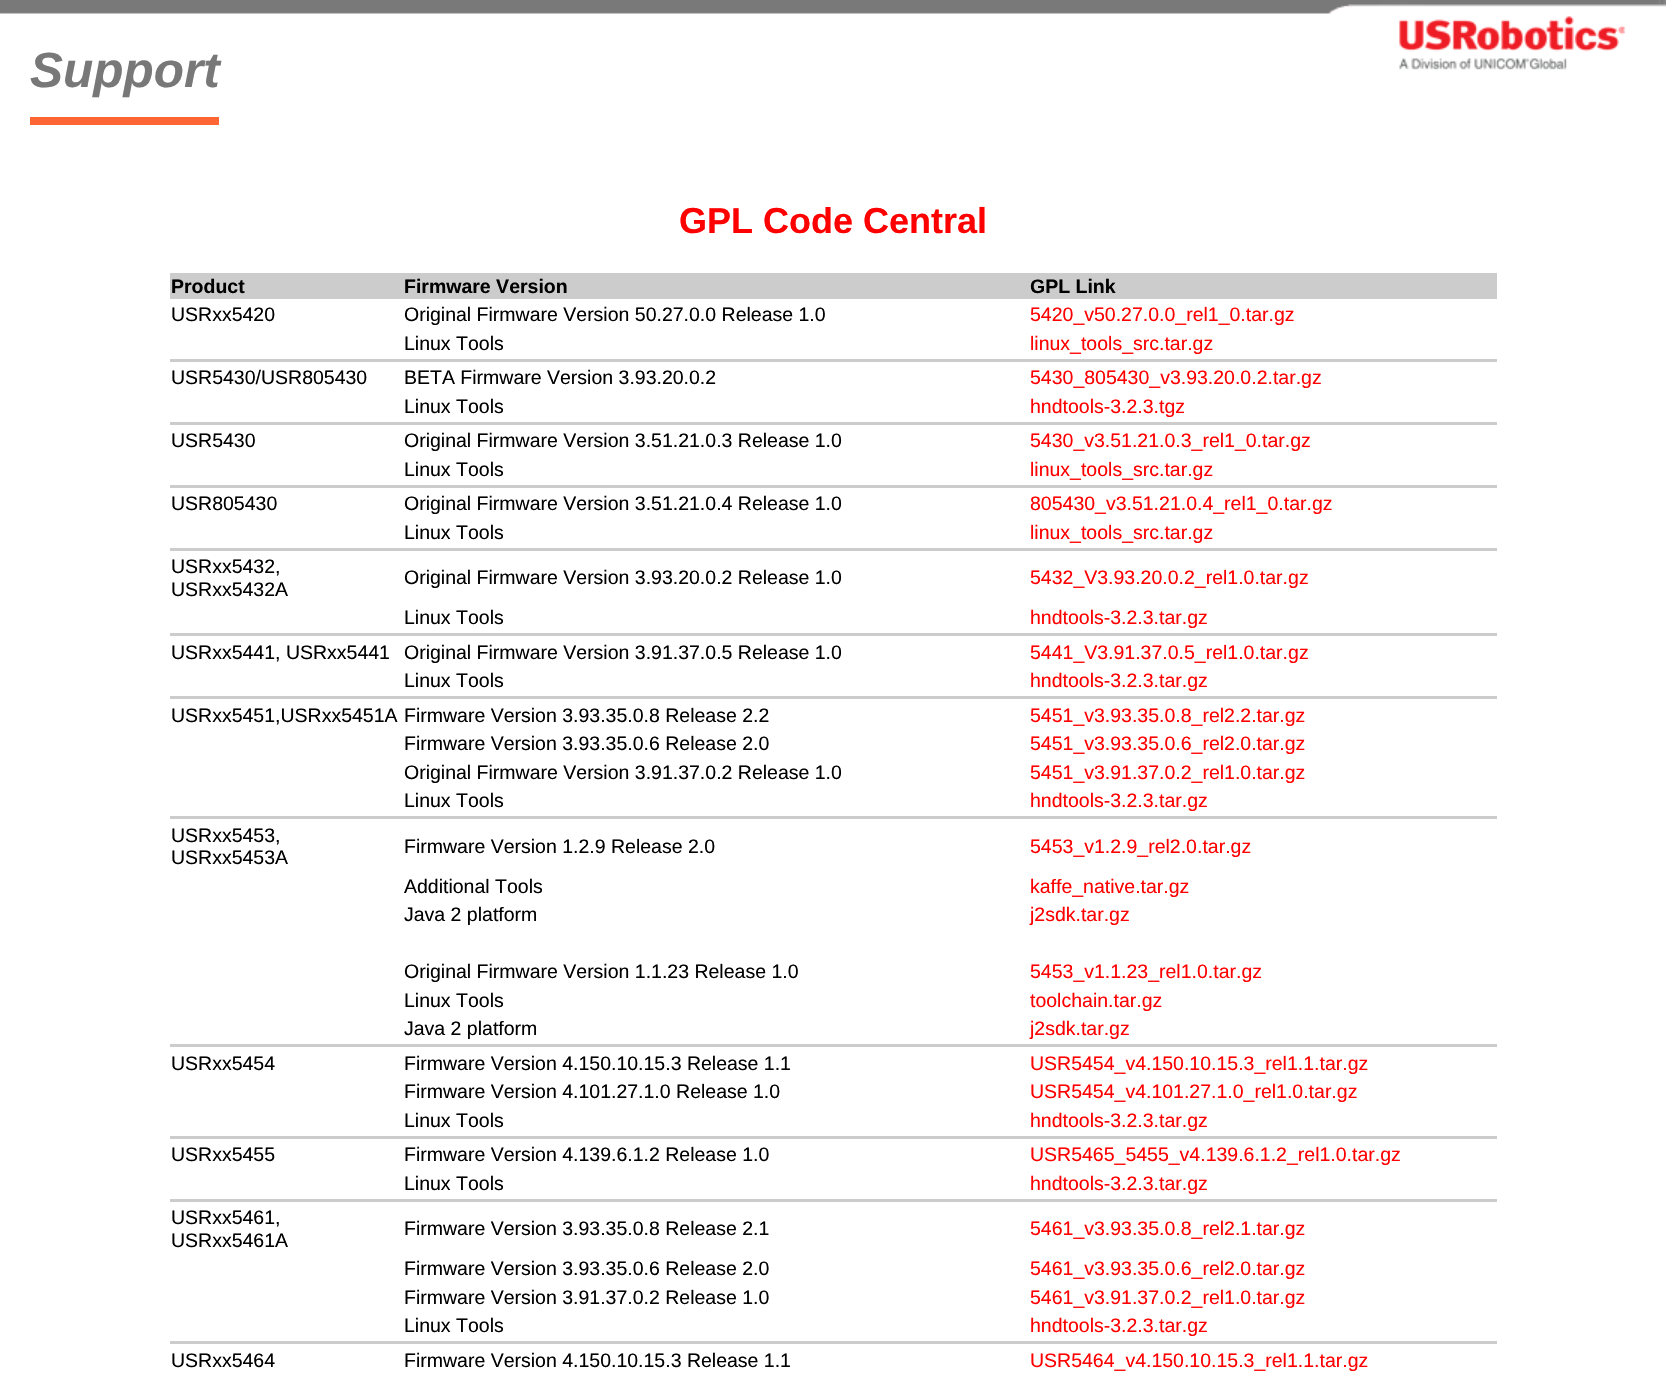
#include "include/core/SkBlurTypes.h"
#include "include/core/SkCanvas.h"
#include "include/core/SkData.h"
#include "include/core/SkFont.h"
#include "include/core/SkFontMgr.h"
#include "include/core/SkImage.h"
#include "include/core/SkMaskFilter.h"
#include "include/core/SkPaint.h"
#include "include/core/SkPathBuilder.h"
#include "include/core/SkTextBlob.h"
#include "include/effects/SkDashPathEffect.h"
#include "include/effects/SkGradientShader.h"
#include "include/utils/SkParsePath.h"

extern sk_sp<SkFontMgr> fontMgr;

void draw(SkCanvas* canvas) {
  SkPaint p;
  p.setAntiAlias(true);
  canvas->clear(SK_ColorWHITE);
  canvas->drawImageRect(SkImages::DeferredFromEncodedData(SkData::MakeFromFileName("images/1.png")), SkRect::MakeLTRB(0, 0, 1666, 70), SkSamplingOptions());
  p.setColor(SkColorSetRGB(255, 102, 51));
  canvas->drawRect(SkRect::MakeLTRB(30, 117, 219, 125), p);
  p.setColor(SkColorSetRGB(204, 204, 204));
  canvas->drawRect(SkRect::MakeLTRB(170, 273, 1497, 299), p);
  canvas->drawRect(SkRect::MakeLTRB(170, 359, 1497, 362), p);
  canvas->drawRect(SkRect::MakeLTRB(170, 422, 1497, 425), p);
  canvas->drawRect(SkRect::MakeLTRB(170, 485, 1497, 488), p);
  canvas->drawRect(SkRect::MakeLTRB(170, 548, 1497, 551), p);
  canvas->drawRect(SkRect::MakeLTRB(170, 633, 1497, 636), p);
  canvas->drawRect(SkRect::MakeLTRB(170, 696, 1497, 699), p);
  canvas->drawRect(SkRect::MakeLTRB(170, 816, 1497, 819), p);
  canvas->drawRect(SkRect::MakeLTRB(170, 1044, 1497, 1047), p);
  canvas->drawRect(SkRect::MakeLTRB(170, 1136, 1497, 1139), p);
  canvas->drawRect(SkRect::MakeLTRB(170, 1199, 1497, 1202), p);
  canvas->drawRect(SkRect::MakeLTRB(170, 1341, 1497, 1344), p);
  SkFont font1(fontMgr->matchFamilyStyle("Liberation Sans", SkFontStyle::BoldItalic()), 49.5f);
  font1.setSubpixel(true);
  p.setColor(SkColorSetRGB(120, 120, 120));
  canvas->drawString("Support", 30, 87, font1, p);
  SkFont font2(fontMgr->matchFamilyStyle("Liberation Sans", SkFontStyle::Bold()), 36);
  font2.setSubpixel(true);
  p.setColor(SkColorSetRGB(255, 0, 0));
  canvas->drawString("GPL Code Central", 679, 233, font2, p);
  SkFont font3(fontMgr->matchFamilyStyle("Liberation Sans", SkFontStyle::Bold()), 19.5f);
  font3.setSubpixel(true);
  p.setColor(SK_ColorBLACK);
  canvas->drawString("Product", 171, 293, font3, p);
  canvas->drawString("Firmware Version", 404, 293, font3, p);
  canvas->drawString("GPL Link", 1030, 293, font3, p);
  SkFont font4(fontMgr->matchFamilyStyle("Liberation Sans", SkFontStyle::Normal()), 19.5f);
  font4.setSubpixel(true);
  canvas->drawString("USRxx5420", 171, 321, font4, p);
  canvas->drawString("Original Firmware Version 50.27.0.0 Release 1.0", 404, 321, font4, p);
  p.setColor(SkColorSetRGB(255, 0, 0));
  canvas->drawString("5420_v50.27.0.0_rel1_0.tar.gz", 1030, 321, font4, p);
  p.setColor(SK_ColorBLACK);
  canvas->drawString("Linux Tools", 404, 350, font4, p);
  p.setColor(SkColorSetRGB(255, 0, 0));
  canvas->drawString("linux_tools_src.tar.gz", 1030, 350, font4, p);
  p.setColor(SK_ColorBLACK);
  canvas->drawString("USR5430/USR805430", 171, 384, font4, p);
  canvas->drawString("BETA Firmware Version 3.93.20.0.2", 404, 384, font4, p);
  p.setColor(SkColorSetRGB(255, 0, 0));
  canvas->drawString("5430_805430_v3.93.20.0.2.tar.gz", 1030, 384, font4, p);
  p.setColor(SK_ColorBLACK);
  canvas->drawString("Linux Tools", 404, 413, font4, p);
  p.setColor(SkColorSetRGB(255, 0, 0));
  canvas->drawString("hndtools-3.2.3.tgz", 1030, 413, font4, p);
  p.setColor(SK_ColorBLACK);
  canvas->drawString("USR5430", 171, 447, font4, p);
  canvas->drawString("Original Firmware Version 3.51.21.0.3 Release 1.0", 404, 447, font4, p);
  p.setColor(SkColorSetRGB(255, 0, 0));
  canvas->drawString("5430_v3.51.21.0.3_rel1_0.tar.gz", 1030, 447, font4, p);
  p.setColor(SK_ColorBLACK);
  canvas->drawString("Linux Tools", 404, 476, font4, p);
  p.setColor(SkColorSetRGB(255, 0, 0));
  canvas->drawString("linux_tools_src.tar.gz", 1030, 476, font4, p);
  p.setColor(SK_ColorBLACK);
  canvas->drawString("USR805430", 171, 510, font4, p);
  canvas->drawString("Original Firmware Version 3.51.21.0.4 Release 1.0", 404, 510, font4, p);
  p.setColor(SkColorSetRGB(255, 0, 0));
  canvas->drawString("805430_v3.51.21.0.4_rel1_0.tar.gz", 1030, 510, font4, p);
  p.setColor(SK_ColorBLACK);
  canvas->drawString("Linux Tools", 404, 539, font4, p);
  p.setColor(SkColorSetRGB(255, 0, 0));
  canvas->drawString("linux_tools_src.tar.gz", 1030, 539, font4, p);
  p.setColor(SK_ColorBLACK);
  canvas->drawString("USRxx5432,", 171, 573, font4, p);
  canvas->drawString("USRxx5432A", 171, 596, font4, p);
  canvas->drawString("Original Firmware Version 3.93.20.0.2 Release 1.0", 404, 584, font4, p);
  p.setColor(SkColorSetRGB(255, 0, 0));
  canvas->drawString("5432_V3.93.20.0.2_rel1.0.tar.gz", 1030, 584, font4, p);
  p.setColor(SK_ColorBLACK);
  canvas->drawString("Linux Tools", 404, 624, font4, p);
  p.setColor(SkColorSetRGB(255, 0, 0));
  canvas->drawString("hndtools-3.2.3.tar.gz", 1030, 624, font4, p);
  p.setColor(SK_ColorBLACK);
  canvas->drawString("USRxx5441, USRxx5441", 171, 659, font4, p);
  canvas->drawString("Original Firmware Version 3.91.37.0.5 Release 1.0", 404, 659, font4, p);
  p.setColor(SkColorSetRGB(255, 0, 0));
  canvas->drawString("5441_V3.91.37.0.5_rel1.0.tar.gz", 1030, 659, font4, p);
  p.setColor(SK_ColorBLACK);
  canvas->drawString("Linux Tools", 404, 687, font4, p);
  p.setColor(SkColorSetRGB(255, 0, 0));
  canvas->drawString("hndtools-3.2.3.tar.gz", 1030, 687, font4, p);
  p.setColor(SK_ColorBLACK);
  canvas->drawString("USRxx5451,USRxx5451A", 171, 722, font4, p);
  canvas->drawString("Firmware Version 3.93.35.0.8 Release 2.2", 404, 722, font4, p);
  p.setColor(SkColorSetRGB(255, 0, 0));
  canvas->drawString("5451_v3.93.35.0.8_rel2.2.tar.gz", 1030, 722, font4, p);
  p.setColor(SK_ColorBLACK);
  canvas->drawString("Firmware Version 3.93.35.0.6 Release 2.0", 404, 750, font4, p);
  p.setColor(SkColorSetRGB(255, 0, 0));
  canvas->drawString("5451_v3.93.35.0.6_rel2.0.tar.gz", 1030, 750, font4, p);
  p.setColor(SK_ColorBLACK);
  canvas->drawString("Original Firmware Version 3.91.37.0.2 Release 1.0", 404, 779, font4, p);
  p.setColor(SkColorSetRGB(255, 0, 0));
  canvas->drawString("5451_v3.91.37.0.2_rel1.0.tar.gz", 1030, 779, font4, p);
  p.setColor(SK_ColorBLACK);
  canvas->drawString("Linux Tools", 404, 807, font4, p);
  p.setColor(SkColorSetRGB(255, 0, 0));
  canvas->drawString("hndtools-3.2.3.tar.gz", 1030, 807, font4, p);
  p.setColor(SK_ColorBLACK);
  canvas->drawString("USRxx5453,", 171, 842, font4, p);
  canvas->drawString("USRxx5453A", 171, 864, font4, p);
  canvas->drawString("Firmware Version 1.2.9 Release 2.0", 404, 853, font4, p);
  p.setColor(SkColorSetRGB(255, 0, 0));
  canvas->drawString("5453_v1.2.9_rel2.0.tar.gz", 1030, 853, font4, p);
  p.setColor(SK_ColorBLACK);
  canvas->drawString("Additional Tools", 404, 893, font4, p);
  p.setColor(SkColorSetRGB(255, 0, 0));
  canvas->drawString("kaffe_native.tar.gz", 1030, 893, font4, p);
  p.setColor(SK_ColorBLACK);
  canvas->drawString("Java 2 platform", 404, 921, font4, p);
  p.setColor(SkColorSetRGB(255, 0, 0));
  canvas->drawString("j2sdk.tar.gz", 1030, 921, font4, p);
  p.setColor(SK_ColorBLACK);
  canvas->drawString("Original Firmware Version 1.1.23 Release 1.0", 404, 978, font4, p);
  p.setColor(SkColorSetRGB(255, 0, 0));
  canvas->drawString("5453_v1.1.23_rel1.0.tar.gz", 1030, 978, font4, p);
  p.setColor(SK_ColorBLACK);
  canvas->drawString("Linux Tools", 404, 1007, font4, p);
  p.setColor(SkColorSetRGB(255, 0, 0));
  canvas->drawString("toolchain.tar.gz", 1030, 1007, font4, p);
  p.setColor(SK_ColorBLACK);
  canvas->drawString("Java 2 platform", 404, 1035, font4, p);
  p.setColor(SkColorSetRGB(255, 0, 0));
  canvas->drawString("j2sdk.tar.gz", 1030, 1035, font4, p);
  p.setColor(SK_ColorBLACK);
  canvas->drawString("USRxx5454", 171, 1070, font4, p);
  canvas->drawString("Firmware Version 4.150.10.15.3 Release 1.1", 404, 1070, font4, p);
  p.setColor(SkColorSetRGB(255, 0, 0));
  canvas->drawString("USR5454_v4.150.10.15.3_rel1.1.tar.gz", 1030, 1070, font4, p);
  p.setColor(SK_ColorBLACK);
  canvas->drawString("Firmware Version 4.101.27.1.0 Release 1.0", 404, 1098, font4, p);
  p.setColor(SkColorSetRGB(255, 0, 0));
  canvas->drawString("USR5454_v4.101.27.1.0_rel1.0.tar.gz", 1030, 1098, font4, p);
  p.setColor(SK_ColorBLACK);
  canvas->drawString("Linux Tools", 404, 1127, font4, p);
  p.setColor(SkColorSetRGB(255, 0, 0));
  canvas->drawString("hndtools-3.2.3.tar.gz", 1030, 1127, font4, p);
  p.setColor(SK_ColorBLACK);
  canvas->drawString("USRxx5455", 171, 1161, font4, p);
  canvas->drawString("Firmware Version 4.139.6.1.2 Release 1.0", 404, 1161, font4, p);
  p.setColor(SkColorSetRGB(255, 0, 0));
  canvas->drawString("USR5465_5455_v4.139.6.1.2_rel1.0.tar.gz", 1030, 1161, font4, p);
  p.setColor(SK_ColorBLACK);
  canvas->drawString("Linux Tools", 404, 1190, font4, p);
  p.setColor(SkColorSetRGB(255, 0, 0));
  canvas->drawString("hndtools-3.2.3.tar.gz", 1030, 1190, font4, p);
  p.setColor(SK_ColorBLACK);
  canvas->drawString("USRxx5461,", 171, 1224, font4, p);
  canvas->drawString("USRxx5461A", 171, 1247, font4, p);
  canvas->drawString("Firmware Version 3.93.35.0.8 Release 2.1", 404, 1235, font4, p);
  p.setColor(SkColorSetRGB(255, 0, 0));
  canvas->drawString("5461_v3.93.35.0.8_rel2.1.tar.gz", 1030, 1235, font4, p);
  p.setColor(SK_ColorBLACK);
  canvas->drawString("Firmware Version 3.93.35.0.6 Release 2.0", 404, 1275, font4, p);
  p.setColor(SkColorSetRGB(255, 0, 0));
  canvas->drawString("5461_v3.93.35.0.6_rel2.0.tar.gz", 1030, 1275, font4, p);
  p.setColor(SK_ColorBLACK);
  canvas->drawString("Firmware Version 3.91.37.0.2 Release 1.0", 404, 1304, font4, p);
  p.setColor(SkColorSetRGB(255, 0, 0));
  canvas->drawString("5461_v3.91.37.0.2_rel1.0.tar.gz", 1030, 1304, font4, p);
  p.setColor(SK_ColorBLACK);
  canvas->drawString("Linux Tools", 404, 1332, font4, p);
  p.setColor(SkColorSetRGB(255, 0, 0));
  canvas->drawString("hndtools-3.2.3.tar.gz", 1030, 1332, font4, p);
  p.setColor(SK_ColorBLACK);
  canvas->drawString("USRxx5464", 171, 1367, font4, p);
  canvas->drawString("Firmware Version 4.150.10.15.3 Release 1.1", 404, 1367, font4, p);
  p.setColor(SkColorSetRGB(255, 0, 0));
  canvas->drawString("USR5464_v4.150.10.15.3_rel1.1.tar.gz", 1030, 1367, font4, p);
}
